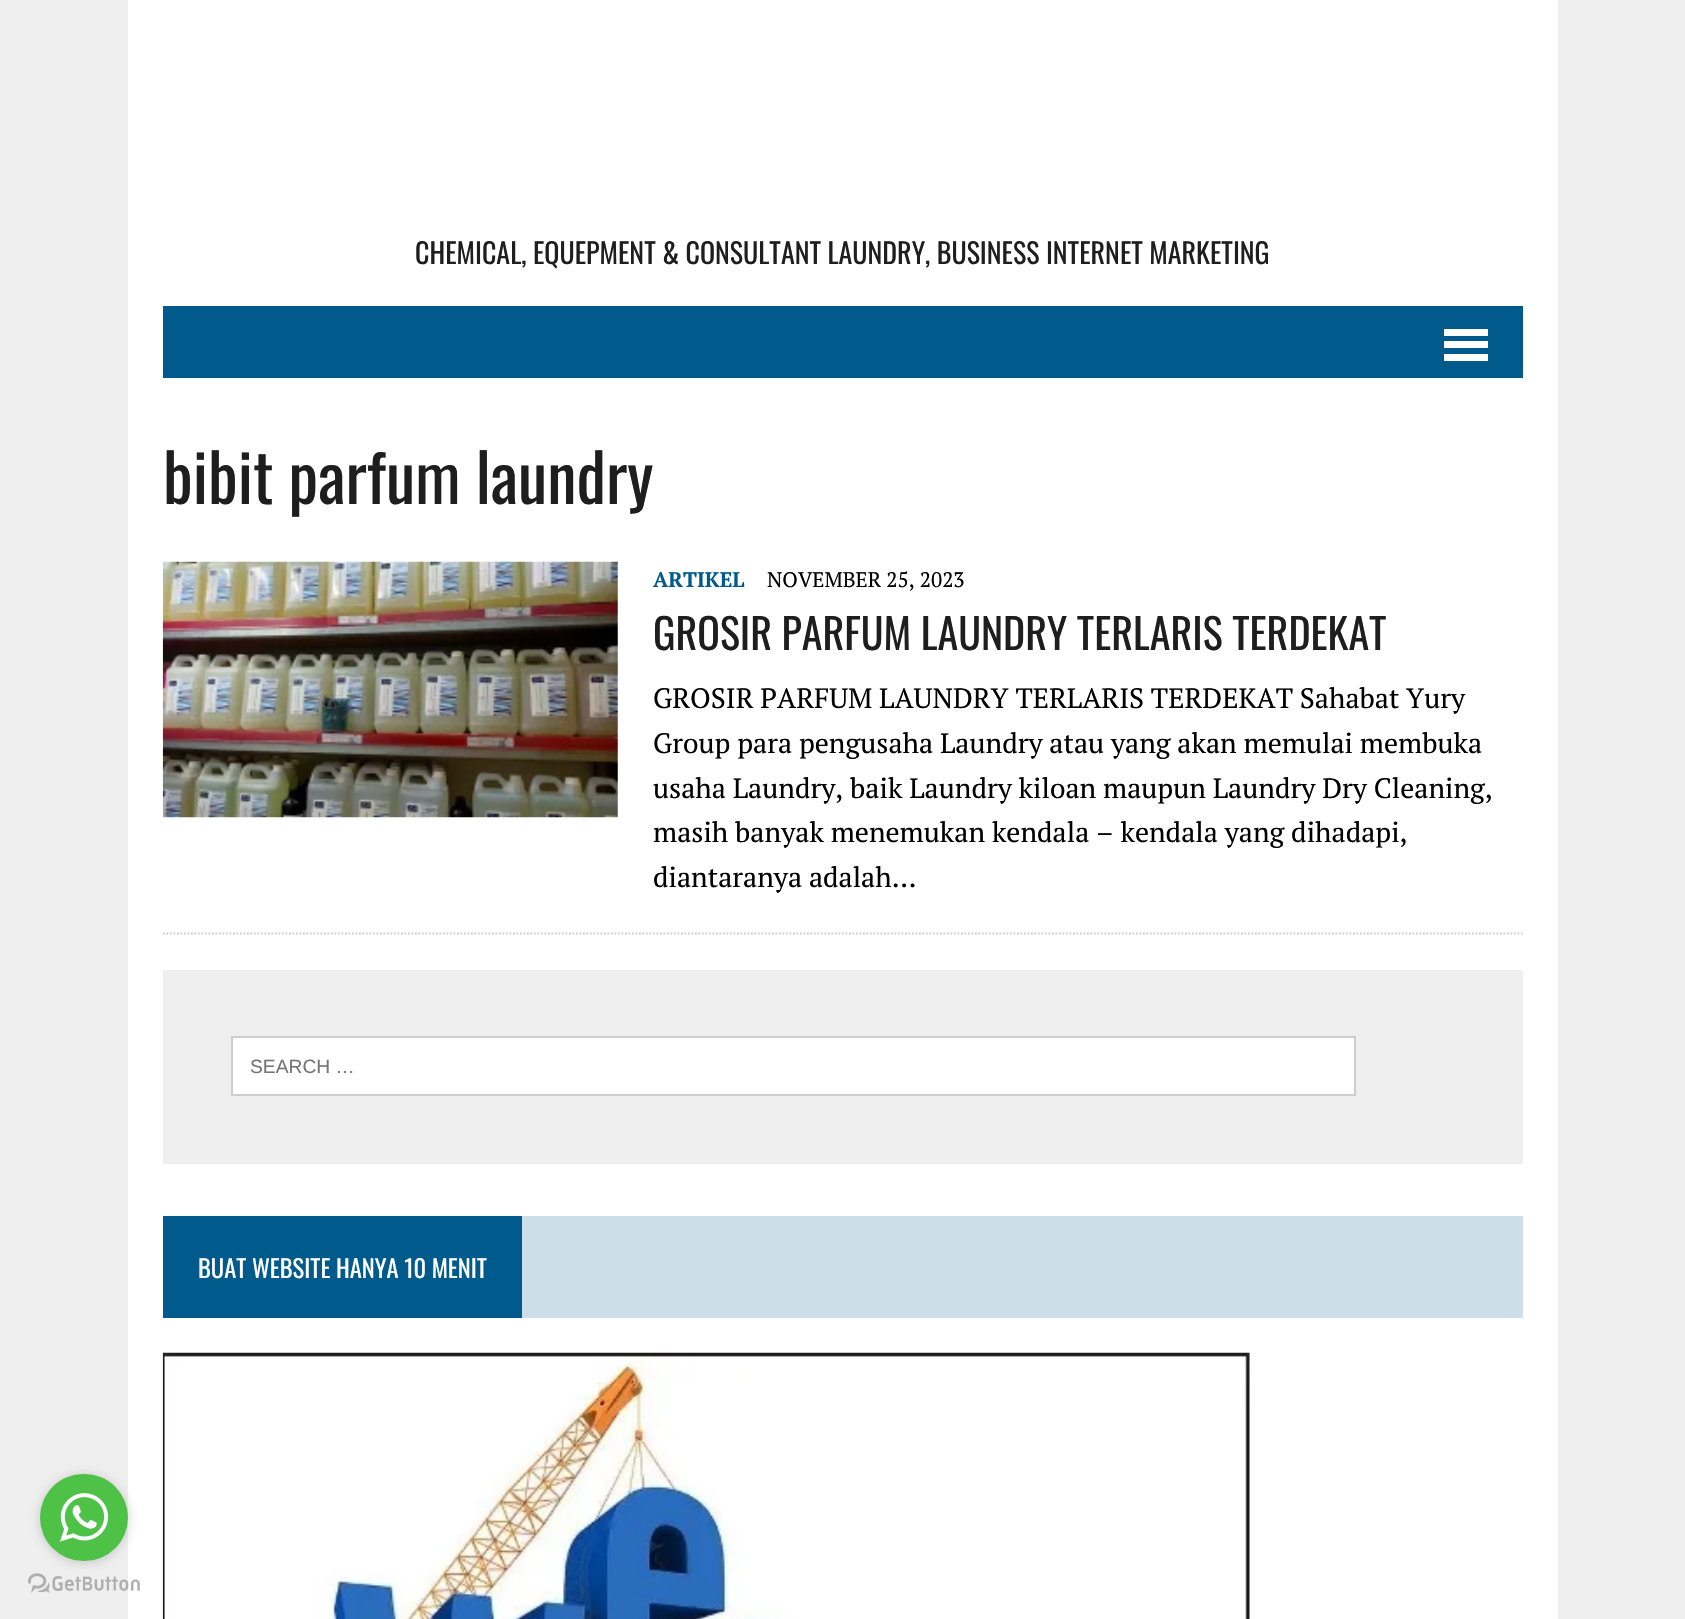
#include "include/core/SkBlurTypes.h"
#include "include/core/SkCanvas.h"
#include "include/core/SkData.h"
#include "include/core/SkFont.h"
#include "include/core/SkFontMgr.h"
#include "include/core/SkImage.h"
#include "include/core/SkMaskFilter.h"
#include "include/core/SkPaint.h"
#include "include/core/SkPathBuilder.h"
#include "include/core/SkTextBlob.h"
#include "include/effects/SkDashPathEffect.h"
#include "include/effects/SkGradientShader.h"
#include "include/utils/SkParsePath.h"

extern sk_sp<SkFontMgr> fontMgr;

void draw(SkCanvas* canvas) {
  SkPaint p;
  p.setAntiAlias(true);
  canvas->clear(SkColorSetRGB(239, 239, 239));
  p.setColor(SK_ColorWHITE);
  canvas->drawRect(SkRect::MakeLTRB(128, 0, 1558, 1619), p);
  p.setColor(SkColorSetRGB(0, 90, 140));
  canvas->drawRect(SkRect::MakeLTRB(163, 306, 1523, 378), p);
  p.setColor(SK_ColorWHITE);
  canvas->drawRect(SkRect::MakeLTRB(1444, 329, 1488, 336), p);
  canvas->drawRect(SkRect::MakeLTRB(1444, 341, 1488, 348), p);
  canvas->drawRect(SkRect::MakeLTRB(1444, 354, 1488, 361), p);
  canvas->drawImageRect(SkImages::DeferredFromEncodedData(SkData::MakeFromFileName("images/1.png")), SkRect::MakeLTRB(162, 561, 618, 818), SkSamplingOptions());
  p.setStyle(SkPaint::kStroke_Style);
  p.setStrokeWidth(1.8f);
  p.setColor(SkColorSetRGB(205, 205, 205));
  p.setPathEffect(SkDashPathEffect::Make({{1.75f, 1.75f}}, 0));
  canvas->drawPath(SkPathBuilder().moveTo(163, 933.5f).lineTo(1522.5f, 933.5f).detach(), p);
  p.setPathEffect(nullptr);
  p.setStyle(SkPaint::kFill_Style);
  p.setColor(SkColorSetRGB(239, 239, 239));
  canvas->drawRect(SkRect::MakeLTRB(163, 970, 1523, 1164), p);
  p.setColor(SK_ColorWHITE);
  canvas->drawRect(SkRect::MakeLTRB(232, 1037, 1355, 1095), p);
  p.setStyle(SkPaint::kStroke_Style);
  p.setStrokeWidth(2);
  p.setColor(SkColorSetRGB(205, 205, 205));
  canvas->drawRect(SkRect::MakeLTRB(232, 1037, 1355, 1095), p);
  p.setStyle(SkPaint::kFill_Style);
  p.setColor(SkColorSetRGB(204, 222, 232));
  canvas->drawRect(SkRect::MakeLTRB(522, 1216, 1523, 1318), p);
  p.setColor(SkColorSetRGB(0, 90, 140));
  canvas->drawRect(SkRect::MakeLTRB(163, 1216, 522, 1318), p);
  canvas->drawImageRect(SkImages::DeferredFromEncodedData(SkData::MakeFromFileName("images/2.png")), SkRect::MakeLTRB(162, 1352, 1250, 1619), SkSamplingOptions());
  canvas->drawImageRect(SkImages::DeferredFromEncodedData(SkData::MakeFromFileName("images/4.png")), SkRect::MakeLTRB(28, 1573, 140, 1593), SkSamplingOptions());
  p.setColor(SkColorSetARGB(102, 136, 136, 136));
  p.setMaskFilter(SkMaskFilter::MakeBlur(kNormal_SkBlurStyle, 6));
  canvas->drawRoundRect(SkRect::MakeLTRB(40, 1475, 128, 1563), 44, 44, p);
  p.setMaskFilter(nullptr);
  p.setColor(SkColorSetRGB(77, 194, 71));
  canvas->drawRoundRect(SkRect::MakeLTRB(40, 1474, 128, 1561), 43.5f, 43.5f, p);
  canvas->drawImageRect(SkImages::DeferredFromEncodedData(SkData::MakeFromFileName("images/3.png")), SkRect::MakeLTRB(60, 1493, 109, 1542), SkSamplingOptions());
  SkFont font1(fontMgr->matchFamilyStyle("Oswald", SkFontStyle::Normal()), 28);
  font1.setSubpixel(true);
  p.setColor(SkColorSetRGB(31, 30, 30));
  canvas->drawString("CHEMICAL, EQUEPMENT & CONSULTANT LAUNDRY, BUSINESS INTERNET MARKETING", 415, 264, font1, p);
  SkFont font2(fontMgr->matchFamilyStyle("Oswald", SkFontStyle::Normal()), 66.5f);
  font2.setSubpixel(true);
  canvas->drawString("bibit parfum laundry", 163, 504, font2, p);
  SkFont font3(fontMgr->matchFamilyStyle("PT Serif", SkFontStyle::Bold()), 21);
  font3.setSubpixel(true);
  p.setColor(SkColorSetRGB(0, 90, 140));
  canvas->drawString("ARTIKEL", 653, 587, font3, p);
  SkFont font4(fontMgr->matchFamilyStyle("PT Serif", SkFontStyle::Normal()), 21);
  font4.setSubpixel(true);
  p.setColor(SK_ColorBLACK);
  canvas->drawString("NOVEMBER 25, 2023", 767, 587, font4, p);
  SkFont font5(fontMgr->matchFamilyStyle("Oswald", SkFontStyle::Normal()), 42);
  font5.setSubpixel(true);
  p.setColor(SkColorSetRGB(31, 30, 30));
  canvas->drawString("GROSIR PARFUM LAUNDRY TERLARIS TERDEKAT", 653, 650, font5, p);
  SkFont font6(fontMgr->matchFamilyStyle("PT Serif", SkFontStyle::Normal()), 28);
  font6.setSubpixel(true);
  p.setColor(SK_ColorBLACK);
  canvas->drawString("GROSIR PARFUM LAUNDRY TERLARIS TERDEKAT Sahabat Yury", 653, 708, font6, p);
  canvas->drawString("Group para pengusaha Laundry atau yang akan memulai membuka", 653, 753, font6, p);
  canvas->drawString("usaha Laundry, baik Laundry kiloan maupun Laundry Dry Cleaning,", 653, 798, font6, p);
  canvas->drawString("masih banyak menemukan kendala – kendala yang dihadapi,", 653, 842, font6, p);
  canvas->drawString("diantaranya adalah…", 653, 887, font6, p);
  SkFont font7(fontMgr->matchFamilyStyle("Liberation Sans", SkFontStyle::Normal()), 19.25f);
  font7.setSubpixel(true);
  p.setColor(SkColorSetRGB(117, 117, 117));
  canvas->drawString("SEARCH …", 250, 1073, font7, p);
  SkFont font8(fontMgr->matchFamilyStyle("Oswald", SkFontStyle::Normal()), 24.5f);
  font8.setSubpixel(true);
  p.setColor(SK_ColorWHITE);
  canvas->drawString("BUAT WEBSITE HANYA 10 MENIT", 198, 1278, font8, p);
}
